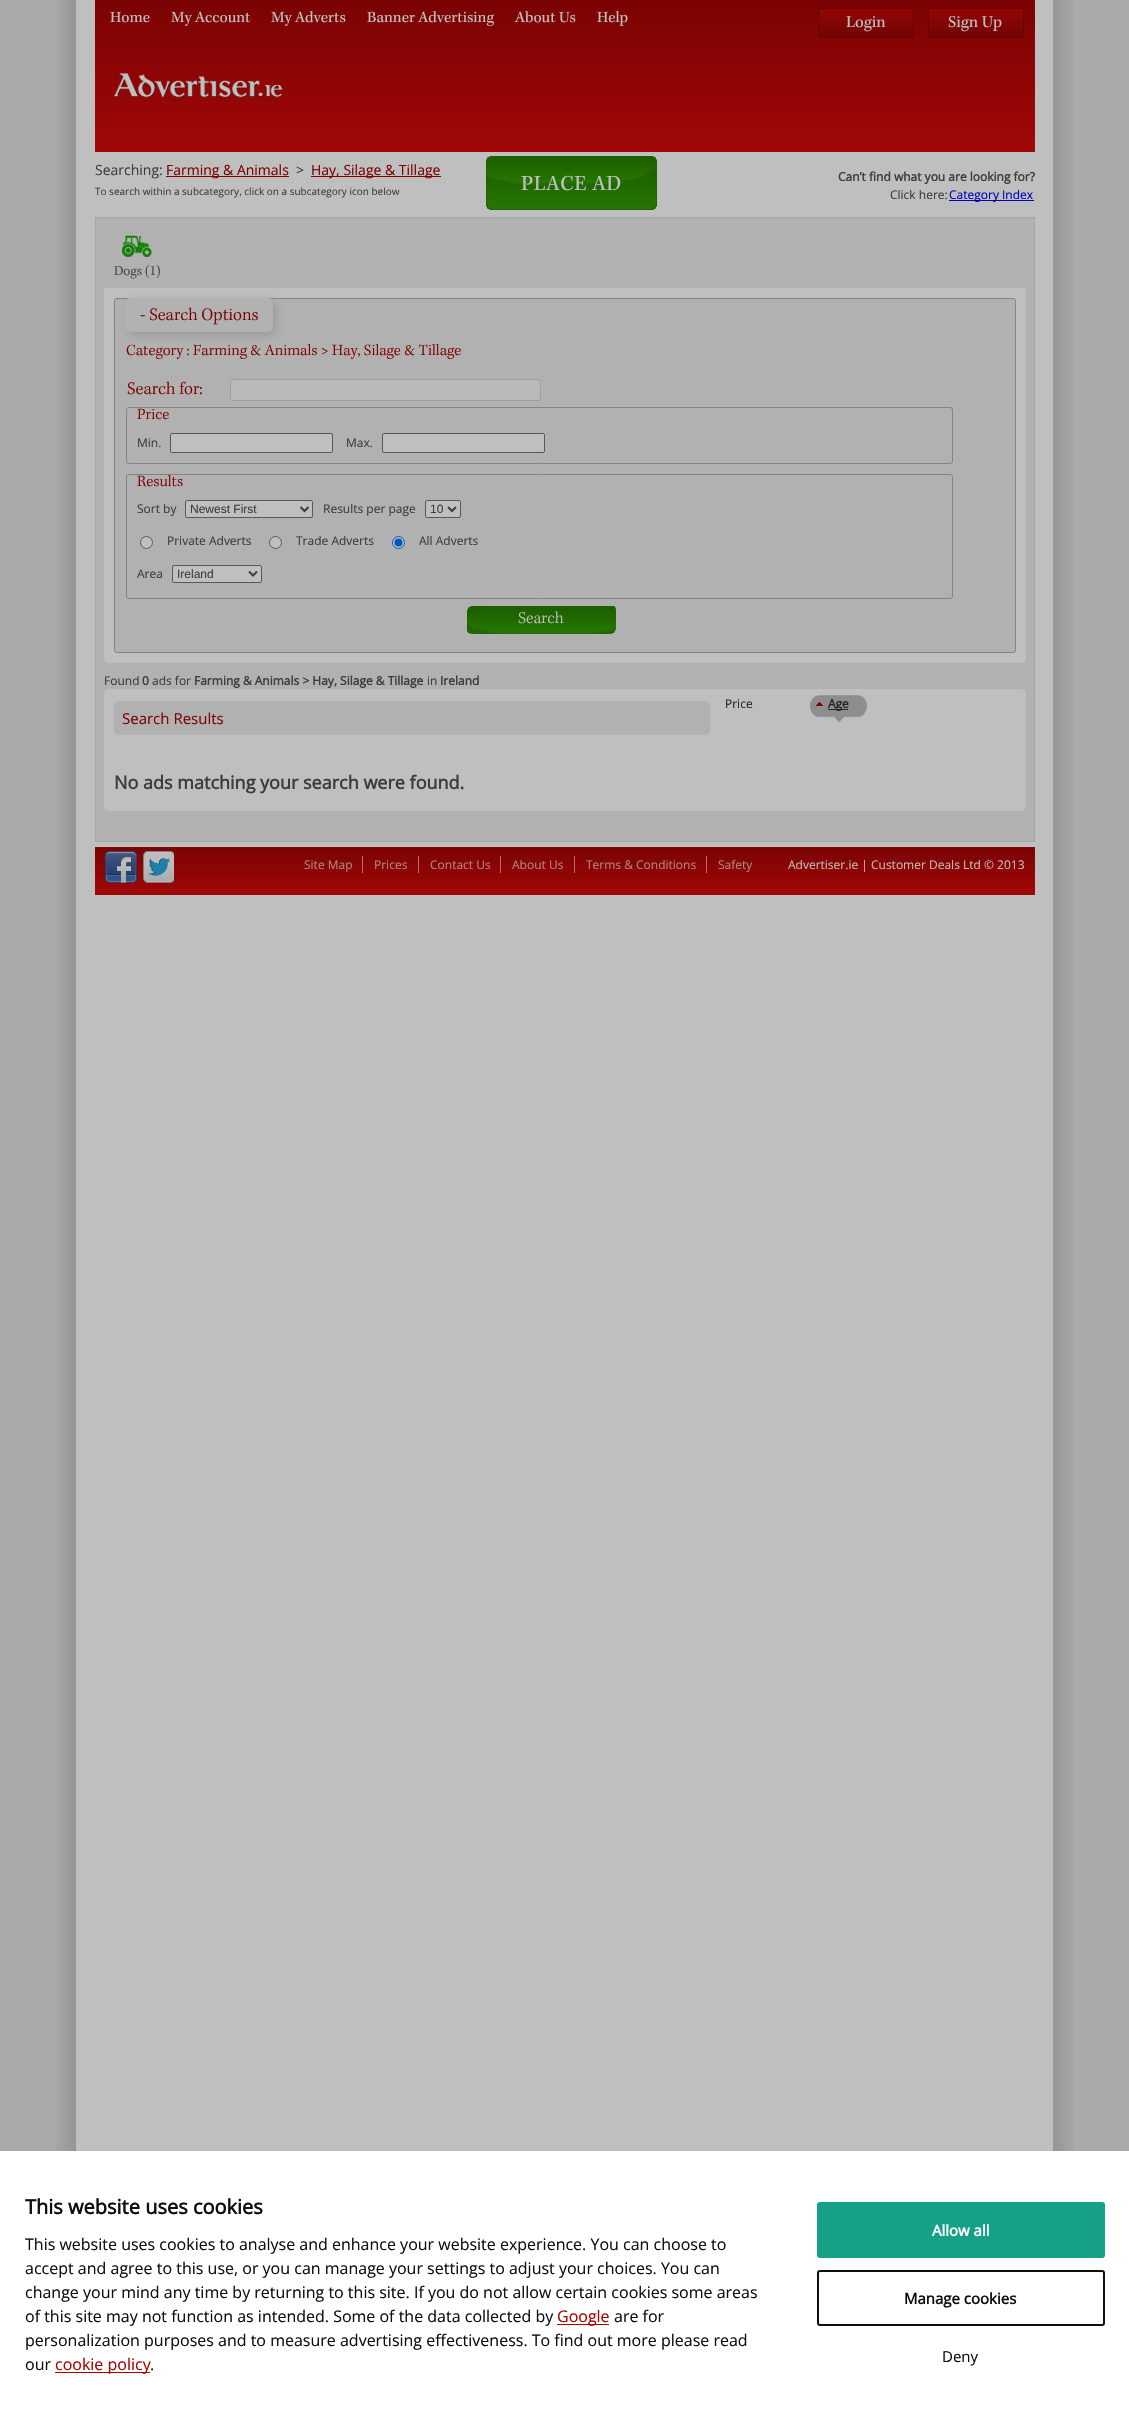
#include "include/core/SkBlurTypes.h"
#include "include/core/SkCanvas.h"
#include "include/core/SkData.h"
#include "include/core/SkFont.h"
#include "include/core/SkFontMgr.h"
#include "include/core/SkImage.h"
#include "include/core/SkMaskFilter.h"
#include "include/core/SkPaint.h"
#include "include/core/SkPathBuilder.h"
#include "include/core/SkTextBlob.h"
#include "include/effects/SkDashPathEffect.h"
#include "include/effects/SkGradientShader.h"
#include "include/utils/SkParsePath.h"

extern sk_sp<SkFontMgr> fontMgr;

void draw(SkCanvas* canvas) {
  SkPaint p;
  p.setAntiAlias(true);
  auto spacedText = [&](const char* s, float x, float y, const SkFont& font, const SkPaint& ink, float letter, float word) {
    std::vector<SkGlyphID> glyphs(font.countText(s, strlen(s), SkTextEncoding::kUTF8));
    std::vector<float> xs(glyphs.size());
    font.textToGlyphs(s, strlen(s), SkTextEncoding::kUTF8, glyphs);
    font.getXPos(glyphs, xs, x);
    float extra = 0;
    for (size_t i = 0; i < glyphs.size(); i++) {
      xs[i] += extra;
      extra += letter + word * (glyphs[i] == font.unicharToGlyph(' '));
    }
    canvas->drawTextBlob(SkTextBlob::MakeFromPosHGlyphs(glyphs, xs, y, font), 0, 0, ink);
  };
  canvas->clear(SkColorSetRGB(170, 170, 170));
  canvas->drawImageRect(SkImages::DeferredFromEncodedData(SkData::MakeFromFileName("images/1.png")), SkRect::MakeLTRB(55, 0, 1074, 2151), SkSamplingOptions());
  {
    const SkColor colors[] = {SkColorSetRGB(123, 3, 3), SkColorSetRGB(161, 7, 7)};
    const float stops[] = {0, 1};
    const SkPoint ends[] = {{565, 0}, {565, 152}};
    p.setShader(SkGradientShader::MakeLinear(ends, colors, stops, 2, SkTileMode::kClamp));
    p.setAlpha(255);
  }
  canvas->drawRect(SkRect::MakeLTRB(95, 0, 1035, 152), p);
  canvas->save();
  canvas->clipPath(SkPathBuilder().moveTo(821, 8).lineTo(911, 8).cubicTo(912.5f, 8, 914, 9.5f, 914, 11).lineTo(914, 35).cubicTo(914, 36.5f, 912.5f, 38, 911, 38).lineTo(821, 38).cubicTo(819.5f, 38, 818, 36.5f, 818, 35).lineTo(818, 11).cubicTo(818, 9.5f, 819.5f, 8, 821, 8).close().detach(), true);
  {
    const SkColor colors[] = {SkColorSetRGB(149, 5, 5), SkColorSetRGB(113, 5, 5)};
    const float stops[] = {0, 1};
    const SkPoint ends[] = {{866, 9}, {866, 37}};
    p.setShader(SkGradientShader::MakeLinear(ends, colors, stops, 2, SkTileMode::kClamp));
    p.setAlpha(255);
  }
  canvas->drawRect(SkRect::MakeLTRB(818, 9, 914, 37), p);
  canvas->restore();
  p.setStyle(SkPaint::kStroke_Style);
  p.setStrokeWidth(1);
  p.setShader(nullptr);
  p.setColor(SkColorSetRGB(100, 5, 0));
  canvas->drawRoundRect(SkRect::MakeLTRB(818.5f, 8.5f, 913.5f, 37.5f), 2.5f, 2.5f, p);
  canvas->save();
  canvas->clipPath(SkPathBuilder().moveTo(931, 8).lineTo(1021, 8).cubicTo(1022.5f, 8, 1024, 9.5f, 1024, 11).lineTo(1024, 35).cubicTo(1024, 36.5f, 1022.5f, 38, 1021, 38).lineTo(931, 38).cubicTo(929.5f, 38, 928, 36.5f, 928, 35).lineTo(928, 11).cubicTo(928, 9.5f, 929.5f, 8, 931, 8).close().detach(), true);
  p.setStyle(SkPaint::kFill_Style);
  {
    const SkColor colors[] = {SkColorSetRGB(149, 5, 5), SkColorSetRGB(113, 5, 5)};
    const float stops[] = {0, 1};
    const SkPoint ends[] = {{976, 9}, {976, 37}};
    p.setShader(SkGradientShader::MakeLinear(ends, colors, stops, 2, SkTileMode::kClamp));
    p.setAlpha(255);
  }
  canvas->drawRect(SkRect::MakeLTRB(928, 9, 1024, 37), p);
  canvas->restore();
  p.setStyle(SkPaint::kStroke_Style);
  p.setShader(nullptr);
  p.setColor(SkColorSetRGB(100, 5, 0));
  canvas->drawRoundRect(SkRect::MakeLTRB(928.5f, 8.5f, 1023.5f, 37.5f), 2.5f, 2.5f, p);
  canvas->drawImageRect(SkImages::DeferredFromEncodedData(SkData::MakeFromFileName("images/2.png")), SkRect::MakeLTRB(114, 73, 283, 98), SkSamplingOptions());
  p.setStyle(SkPaint::kFill_Style);
  p.setColor(SkColorSetRGB(125, 2, 1));
  canvas->drawRect(SkRect::MakeLTRB(166, 176, 289, 177), p);
  canvas->drawRect(SkRect::MakeLTRB(311, 176, 441, 177), p);
  canvas->drawImageRect(SkImages::DeferredFromEncodedData(SkData::MakeFromFileName("images/3.png")), SkRect::MakeLTRB(486, 156, 657, 210), SkSamplingOptions());
  p.setColor(SkColorSetRGB(0, 0, 191));
  canvas->drawRect(SkRect::MakeLTRB(949, 200, 1034, 201), p);
  p.setColor(SkColorSetRGB(177, 177, 177));
  canvas->drawRect(SkRect::MakeLTRB(95.5f, 217.5f, 1034.5f, 841.5f), p);
  p.setStyle(SkPaint::kStroke_Style);
  p.setColor(SkColorSetRGB(165, 165, 165));
  canvas->drawRect(SkRect::MakeLTRB(95.5f, 217.5f, 1034.5f, 841.5f), p);
  canvas->drawImageRect(SkImages::DeferredFromEncodedData(SkData::MakeFromFileName("images/4.png")), SkRect::MakeLTRB(122, 235, 152, 257), SkSamplingOptions());
  p.setStyle(SkPaint::kFill_Style);
  p.setColor(SkColorSetRGB(191, 191, 191));
  canvas->drawPath(SkPathBuilder().moveTo(104, 288).lineTo(1026, 288).lineTo(1026, 658).cubicTo(1026, 661, 1024, 663, 1021, 663).lineTo(109, 663).cubicTo(106, 663, 104, 661, 104, 658).close().detach(), p);
  p.setColor(SkColorSetRGB(177, 177, 177));
  canvas->drawRoundRect(SkRect::MakeLTRB(114.5f, 298.5f, 1015.5f, 652.5f), 2.5f, 2.5f, p);
  p.setStyle(SkPaint::kStroke_Style);
  p.setColor(SkColorSetRGB(131, 131, 131));
  canvas->drawRoundRect(SkRect::MakeLTRB(114.5f, 298.5f, 1015.5f, 652.5f), 2.5f, 2.5f, p);
  p.setStyle(SkPaint::kFill_Style);
  p.setColor(SkColorSetRGB(153, 153, 153));
  p.setMaskFilter(SkMaskFilter::MakeBlur(kNormal_SkBlurStyle, 4));
  canvas->drawRoundRect(SkRect::MakeLTRB(128, 301, 276, 335), 5, 5, p);
  p.setMaskFilter(nullptr);
  p.setColor(SkColorSetRGB(179, 178, 178));
  canvas->drawRoundRect(SkRect::MakeLTRB(125, 298, 273, 332), 5, 5, p);
  p.setColor(SkColorSetRGB(185, 185, 185));
  canvas->drawRoundRect(SkRect::MakeLTRB(230.5f, 379.5f, 540.5f, 400.5f), 2.5f, 2.5f, p);
  p.setStyle(SkPaint::kStroke_Style);
  p.setColor(SkColorSetRGB(158, 158, 158));
  canvas->drawRoundRect(SkRect::MakeLTRB(230.5f, 379.5f, 540.5f, 400.5f), 2.5f, 2.5f, p);
  p.setColor(SkColorSetRGB(131, 131, 131));
  canvas->drawRoundRect(SkRect::MakeLTRB(126.5f, 407.5f, 952.5f, 463.5f), 2.5f, 2.5f, p);
  p.setStyle(SkPaint::kFill_Style);
  p.setColor(SkColorSetRGB(191, 191, 191));
  canvas->drawRoundRect(SkRect::MakeLTRB(170.5f, 433.5f, 332.5f, 452.5f), 1.5f, 1.5f, p);
  p.setStyle(SkPaint::kStroke_Style);
  p.setColor(SkColorSetRGB(89, 89, 89));
  canvas->drawRoundRect(SkRect::MakeLTRB(170.5f, 433.5f, 332.5f, 452.5f), 1.5f, 1.5f, p);
  p.setStyle(SkPaint::kFill_Style);
  p.setColor(SkColorSetRGB(191, 191, 191));
  canvas->drawRoundRect(SkRect::MakeLTRB(382.5f, 433.5f, 544.5f, 452.5f), 1.5f, 1.5f, p);
  p.setStyle(SkPaint::kStroke_Style);
  p.setColor(SkColorSetRGB(89, 89, 89));
  canvas->drawRoundRect(SkRect::MakeLTRB(382.5f, 433.5f, 544.5f, 452.5f), 1.5f, 1.5f, p);
  p.setColor(SkColorSetRGB(131, 131, 131));
  canvas->drawRoundRect(SkRect::MakeLTRB(126.5f, 474.5f, 952.5f, 598.5f), 2.5f, 2.5f, p);
  p.setStyle(SkPaint::kFill_Style);
  p.setColor(SkColorSetRGB(191, 191, 191));
  canvas->drawRoundRect(SkRect::MakeLTRB(185.5f, 500.5f, 312.5f, 517.5f), 1.5f, 1.5f, p);
  p.setStyle(SkPaint::kStroke_Style);
  p.setColor(SkColorSetRGB(89, 89, 89));
  canvas->drawRoundRect(SkRect::MakeLTRB(185.5f, 500.5f, 312.5f, 517.5f), 1.5f, 1.5f, p);
  p.setStrokeWidth(2);
  p.setColor(SkColorSetRGB(62, 61, 61));
  canvas->drawPath(SkPathBuilder().moveTo(300.5f, 507).lineTo(304.5f, 511).lineTo(308.5f, 507).detach(), p);
  p.setStyle(SkPaint::kFill_Style);
  p.setColor(SkColorSetRGB(191, 191, 191));
  canvas->drawRoundRect(SkRect::MakeLTRB(425.5f, 500.5f, 460.5f, 517.5f), 1.5f, 1.5f, p);
  p.setStyle(SkPaint::kStroke_Style);
  p.setStrokeWidth(1);
  p.setColor(SkColorSetRGB(89, 89, 89));
  canvas->drawRoundRect(SkRect::MakeLTRB(425.5f, 500.5f, 460.5f, 517.5f), 1.5f, 1.5f, p);
  p.setStrokeWidth(2);
  p.setColor(SkColorSetRGB(62, 61, 61));
  canvas->drawPath(SkPathBuilder().moveTo(448, 507).lineTo(452, 511).lineTo(456, 507).detach(), p);
  p.setStyle(SkPaint::kFill_Style);
  p.setColor(SkColorSetRGB(191, 191, 191));
  canvas->drawCircle(146.5f, 542.5f, 6, p);
  p.setStyle(SkPaint::kStroke_Style);
  p.setStrokeWidth(1);
  p.setColor(SkColorSetRGB(89, 89, 89));
  canvas->drawCircle(146.5f, 542.5f, 6, p);
  p.setStyle(SkPaint::kFill_Style);
  p.setColor(SkColorSetRGB(191, 191, 191));
  canvas->drawCircle(275.5f, 542.5f, 6, p);
  p.setStyle(SkPaint::kStroke_Style);
  p.setColor(SkColorSetRGB(89, 89, 89));
  canvas->drawCircle(275.5f, 542.5f, 6, p);
  p.setStyle(SkPaint::kFill_Style);
  p.setColor(SkColorSetRGB(191, 191, 191));
  canvas->drawCircle(398.5f, 542.5f, 6, p);
  p.setStyle(SkPaint::kStroke_Style);
  p.setColor(SkColorSetRGB(0, 88, 191));
  canvas->drawCircle(398.5f, 542.5f, 6, p);
  p.setStyle(SkPaint::kFill_Style);
  canvas->drawCircle(398.5f, 542.5f, 4, p);
  p.setColor(SkColorSetRGB(191, 191, 191));
  canvas->drawRoundRect(SkRect::MakeLTRB(172.5f, 565.5f, 261.5f, 582.5f), 1.5f, 1.5f, p);
  p.setStyle(SkPaint::kStroke_Style);
  p.setColor(SkColorSetRGB(89, 89, 89));
  canvas->drawRoundRect(SkRect::MakeLTRB(172.5f, 565.5f, 261.5f, 582.5f), 1.5f, 1.5f, p);
  p.setStrokeWidth(2);
  p.setColor(SkColorSetRGB(62, 61, 61));
  canvas->drawPath(SkPathBuilder().moveTo(249, 571.5f).lineTo(253, 575.5f).lineTo(257, 571.5f).detach(), p);
  canvas->drawImageRect(SkImages::DeferredFromEncodedData(SkData::MakeFromFileName("images/5.png")), SkRect::MakeLTRB(467, 606, 616, 634), SkSamplingOptions());
  p.setStyle(SkPaint::kFill_Style);
  p.setColor(SkColorSetRGB(191, 191, 191));
  canvas->drawRoundRect(SkRect::MakeLTRB(104, 689, 1026, 811), 5, 5, p);
  canvas->drawImageRect(SkImages::DeferredFromEncodedData(SkData::MakeFromFileName("images/6.png")), SkRect::MakeLTRB(810, 695, 867, 723), SkSamplingOptions());
  canvas->drawImageRect(SkImages::DeferredFromEncodedData(SkData::MakeFromFileName("images/7.png")), SkRect::MakeLTRB(816, 702, 823, 706), SkSamplingOptions());
  p.setColor(SkColorSetRGB(38, 38, 38));
  canvas->drawRect(SkRect::MakeLTRB(828, 709, 848, 710), p);
  p.setColor(SkColorSetRGB(177, 177, 177));
  canvas->drawRoundRect(SkRect::MakeLTRB(114, 701, 710, 735), 5, 5, p);
  {
    const SkColor colors[] = {SkColorSetRGB(123, 3, 3), SkColorSetRGB(161, 7, 7)};
    const float stops[] = {0, 1};
    const SkPoint ends[] = {{565, 847}, {565, 895}};
    p.setShader(SkGradientShader::MakeLinear(ends, colors, stops, 2, SkTileMode::kClamp));
    p.setAlpha(255);
  }
  canvas->drawRect(SkRect::MakeLTRB(95, 847, 1035, 895), p);
  canvas->drawImageRect(SkImages::DeferredFromEncodedData(SkData::MakeFromFileName("images/8.png")), SkRect::MakeLTRB(105, 851, 137, 883), SkSamplingOptions());
  canvas->drawImageRect(SkImages::DeferredFromEncodedData(SkData::MakeFromFileName("images/9.png")), SkRect::MakeLTRB(143, 851, 174, 883), SkSamplingOptions());
  p.setShader(nullptr);
  p.setColor(SkColorSetRGB(182, 111, 111));
  canvas->drawRect(SkRect::MakeLTRB(362, 856, 363, 873), p);
  canvas->drawRect(SkRect::MakeLTRB(418, 856, 419, 873), p);
  canvas->drawRect(SkRect::MakeLTRB(500, 856, 501, 873), p);
  canvas->drawRect(SkRect::MakeLTRB(574, 856, 575, 873), p);
  canvas->drawRect(SkRect::MakeLTRB(706, 856, 707, 873), p);
  p.setColor(SK_ColorWHITE);
  canvas->drawRect(SkRect::MakeLTRB(0, 2151, 1129, 2424), p);
  p.setColor(SkColorSetRGB(167, 3, 1));
  canvas->drawRect(SkRect::MakeLTRB(557, 2324, 609, 2325), p);
  canvas->drawRect(SkRect::MakeLTRB(55, 2372, 150, 2373), p);
  p.setColor(SkColorSetRGB(22, 160, 133));
  canvas->drawRoundRect(SkRect::MakeLTRB(818, 2203, 1104, 2257), 2, 2, p);
  p.setStyle(SkPaint::kStroke_Style);
  canvas->drawRoundRect(SkRect::MakeLTRB(818, 2203, 1104, 2257), 2, 2, p);
  p.setColor(SkColorSetRGB(15, 15, 15));
  canvas->drawRoundRect(SkRect::MakeLTRB(818, 2271, 1104, 2325), 2, 2, p);
  SkFont font1(fontMgr->matchFamilyStyle("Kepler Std", SkFontStyle::Normal()), 16);
  font1.setSubpixel(true);
  p.setStyle(SkPaint::kFill_Style);
  p.setColor(SkColorSetRGB(191, 191, 191));
  canvas->drawString("Home", 110, 22, font1, p);
  canvas->drawString("My Account", 171, 22, font1, p);
  canvas->drawString("My Adverts", 271, 22, font1, p);
  canvas->drawString("Banner Advertising", 367, 22, font1, p);
  canvas->drawString("About Us", 515, 22, font1, p);
  canvas->drawString("Help", 597, 22, font1, p);
  SkFont font2(fontMgr->matchFamilyStyle("Kepler Std", SkFontStyle::Normal()), 17);
  font2.setSubpixel(true);
  canvas->drawString("Login", 846, 27, font2, p);
  canvas->drawString("Sign Up", 948, 27, font2, p);
  SkFont font3(fontMgr->matchFamilyStyle("Open Sans", SkFontStyle::Normal()), 14);
  font3.setSubpixel(true);
  p.setColor(SkColorSetRGB(62, 61, 61));
  canvas->drawString("Searching:", 95, 175, font3, p);
  p.setColor(SkColorSetRGB(125, 2, 1));
  canvas->drawString("Farming & Animals", 166, 175, font3, p);
  p.setColor(SkColorSetRGB(62, 61, 61));
  canvas->drawString(">", 296, 175, font3, p);
  p.setColor(SkColorSetRGB(125, 2, 1));
  canvas->drawString("Hay, Silage & Tillage", 311, 175, font3, p);
  SkFont font4(fontMgr->matchFamilyStyle("Open Sans", SkFontStyle::Normal()), 10);
  font4.setSubpixel(true);
  p.setColor(SkColorSetRGB(62, 61, 61));
  canvas->drawString("To search within a subcategory, click on a subcategory icon below", 95, 195, font4, p);
  SkFont font5(fontMgr->matchFamilyStyle("Kepler Std", SkFontStyle::Normal()), 22);
  font5.setSubpixel(true);
  p.setColor(SkColorSetRGB(191, 191, 191));
  spacedText("PLACE AD", 521, 190, font5, p, 0.5f, 0);
  SkFont font6(fontMgr->matchFamilyStyle("Open Sans", SkFontStyle::Bold()), 12);
  font6.setSubpixel(true);
  p.setColor(SkColorSetRGB(62, 61, 61));
  canvas->drawString("Can’t find what you are looking for?", 838, 181, font6, p);
  SkFont font7(fontMgr->matchFamilyStyle("Open Sans", SkFontStyle::Normal()), 12);
  font7.setSubpixel(true);
  canvas->drawString("Click here:", 890, 199, font7, p);
  p.setColor(SkColorSetRGB(0, 0, 191));
  canvas->drawString("Category Index", 949, 199, font7, p);
  SkFont font8(fontMgr->matchFamilyStyle("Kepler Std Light", SkFontStyle(300, SkFontStyle::kNormal_Width, SkFontStyle::kUpright_Slant)), 14);
  font8.setSubpixel(true);
  p.setColor(SkColorSetRGB(62, 61, 61));
  canvas->drawString("Dogs (1)", 114, 275, font8, p);
  SkFont font9(fontMgr->matchFamilyStyle("Kepler Std Light", SkFontStyle(300, SkFontStyle::kNormal_Width, SkFontStyle::kUpright_Slant)), 18);
  font9.setSubpixel(true);
  p.setColor(SkColorSetRGB(125, 2, 1));
  canvas->drawString("- Search Options", 140, 320, font9, p);
  SkFont font10(fontMgr->matchFamilyStyle("Kepler Std Light", SkFontStyle(300, SkFontStyle::kNormal_Width, SkFontStyle::kUpright_Slant)), 16);
  font10.setSubpixel(true);
  canvas->drawString("Category : Farming & Animals > Hay, Silage & Tillage", 126, 355, font10, p);
  canvas->drawString("Search for:", 127, 394, font9, p);
  canvas->drawString("Price", 137, 419, font10, p);
  p.setColor(SkColorSetRGB(62, 61, 61));
  canvas->drawString("Min.", 137, 447, font7, p);
  canvas->drawString("Max.", 346, 447, font7, p);
  p.setColor(SkColorSetRGB(125, 2, 1));
  canvas->drawString("Results", 137, 486, font10, p);
  p.setColor(SkColorSetRGB(62, 61, 61));
  canvas->drawString("Sort by", 137, 513, font7, p);
  SkFont font11(fontMgr->matchFamilyStyle("Liberation Sans", SkFontStyle::Normal()), 12);
  font11.setSubpixel(true);
  canvas->drawString("Newest First", 190, 513, font11, p);
  canvas->drawString("Results per page", 323, 513, font7, p);
  canvas->drawString("10", 430, 513, font11, p);
  canvas->drawString("Private Adverts", 167, 545, font7, p);
  canvas->drawString("Trade Adverts", 296, 545, font7, p);
  canvas->drawString("All Adverts", 419, 545, font7, p);
  canvas->drawString("Area", 137, 578, font7, p);
  canvas->drawString("Ireland", 177, 578, font11, p);
  SkFont font12(fontMgr->matchFamilyStyle("Kepler Std Light", SkFontStyle(300, SkFontStyle::kNormal_Width, SkFontStyle::kUpright_Slant)), 17);
  font12.setSubpixel(true);
  p.setColor(SkColorSetRGB(191, 191, 191));
  canvas->drawString("Search", 518, 623, font12, p);
  p.setColor(SkColorSetRGB(62, 61, 61));
  canvas->drawString("Found", 104, 685, font7, p);
  canvas->drawString("0", 142, 685, font6, p);
  canvas->drawString("ads for", 152, 685, font7, p);
  canvas->drawString("Farming & Animals > Hay, Silage & Tillage", 194, 685, font6, p);
  canvas->drawString("in", 427, 685, font7, p);
  canvas->drawString("Ireland", 440, 685, font6, p);
  p.setColor(SkColorSetRGB(38, 38, 38));
  canvas->drawString("Price", 725, 708, font7, p);
  canvas->drawString("Age", 828, 708, font6, p);
  SkFont font13(fontMgr->matchFamilyStyle("Open Sans", SkFontStyle::Normal()), 15);
  font13.setSubpixel(true);
  p.setColor(SkColorSetRGB(125, 2, 1));
  canvas->drawString("Search Results", 122, 724, font13, p);
  SkFont font14(fontMgr->matchFamilyStyle("Open Sans", SkFontStyle::Bold()), 18);
  font14.setSubpixel(true);
  p.setColor(SkColorSetRGB(62, 61, 61));
  canvas->drawString("No ads matching your search were found.", 114, 789, font14, p);
  p.setColor(SkColorSetRGB(176, 135, 135));
  canvas->drawString("Site Map", 304, 869, font7, p);
  canvas->drawString("Prices", 374, 869, font7, p);
  canvas->drawString("Contact Us", 430, 869, font7, p);
  canvas->drawString("About Us", 512, 869, font7, p);
  canvas->drawString("Terms & Conditions", 586, 869, font7, p);
  canvas->drawString("Safety", 718, 869, font7, p);
  p.setColor(SkColorSetRGB(191, 191, 191));
  canvas->drawString("Advertiser.ie | Customer Deals Ltd © 2013", 788, 869, font7, p);
  SkFont font15(fontMgr->matchFamilyStyle("Open Sans", SkFontStyle::Bold()), 20);
  font15.setSubpixel(true);
  p.setColor(SkColorSetRGB(15, 15, 15));
  canvas->drawString("This website uses cookies", 25, 2214, font15, p);
  SkFont font16(fontMgr->matchFamilyStyle("Open Sans", SkFontStyle::Normal()), 16);
  font16.setSubpixel(true);
  canvas->drawString("This website uses cookies to analyse and enhance your website experience. You can choose to", 25, 2250, font16, p);
  canvas->drawString("accept and agree to this use, or you can manage your settings to adjust your choices. You can", 25, 2274, font16, p);
  canvas->drawString("change your mind any time by returning to this site. If you do not allow certain cookies some areas", 25, 2298, font16, p);
  canvas->drawString("of this site may not function as intended. Some of the data collected by", 25, 2322, font16, p);
  p.setColor(SkColorSetRGB(167, 3, 1));
  canvas->drawString("Google", 557, 2322, font16, p);
  p.setColor(SkColorSetRGB(15, 15, 15));
  canvas->drawString("are for", 614, 2322, font16, p);
  canvas->drawString("personalization purposes and to measure advertising effectiveness. To find out more please read", 25, 2346, font16, p);
  canvas->drawString("our", 25, 2370, font16, p);
  p.setColor(SkColorSetRGB(167, 3, 1));
  canvas->drawString("cookie policy", 55, 2370, font16, p);
  p.setColor(SkColorSetRGB(15, 15, 15));
  canvas->drawString(".", 150, 2370, font16, p);
  SkFont font17(fontMgr->matchFamilyStyle("Open Sans", SkFontStyle::Bold()), 15);
  font17.setSubpixel(true);
  p.setColor(SK_ColorWHITE);
  canvas->drawString("Allow all", 932, 2236, font17, p);
  p.setColor(SkColorSetRGB(15, 15, 15));
  canvas->drawString("Manage cookies", 904, 2304, font17, p);
  canvas->drawString("Deny", 942, 2362, font13, p);
}
